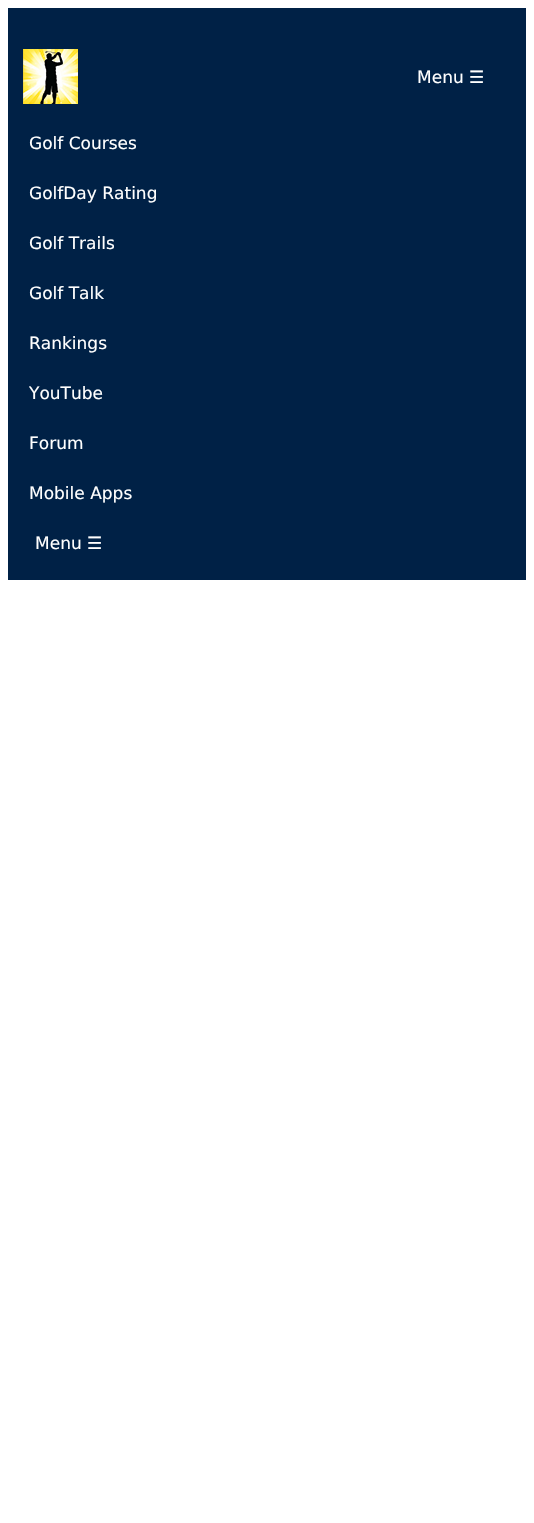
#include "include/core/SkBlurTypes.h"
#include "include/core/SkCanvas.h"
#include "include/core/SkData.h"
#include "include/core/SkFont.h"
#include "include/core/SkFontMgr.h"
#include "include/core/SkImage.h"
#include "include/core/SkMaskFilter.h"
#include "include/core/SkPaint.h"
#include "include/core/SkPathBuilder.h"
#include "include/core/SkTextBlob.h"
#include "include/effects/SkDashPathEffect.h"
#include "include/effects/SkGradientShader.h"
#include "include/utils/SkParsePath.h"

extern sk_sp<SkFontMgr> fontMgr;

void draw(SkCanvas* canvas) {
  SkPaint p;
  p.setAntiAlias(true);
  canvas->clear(SK_ColorWHITE);
  p.setColor(SkColorSetRGB(0, 33, 70));
  canvas->drawRect(SkRect::MakeLTRB(8, 8, 526, 580), p);
  canvas->drawImageRect(SkImages::DeferredFromEncodedData(SkData::MakeFromFileName("images/1.png")), SkRect::MakeLTRB(23, 49, 78, 104), SkSamplingOptions());
  SkFont font1(fontMgr->matchFamilyStyle("DejaVu Sans", SkFontStyle::Normal()), 17);
  font1.setSubpixel(true);
  p.setColor(SK_ColorWHITE);
  canvas->drawString("Menu ☰", 417, 83, font1, p);
  canvas->drawString("Golf Courses", 29, 149, font1, p);
  canvas->drawString("GolfDay Rating", 29, 199, font1, p);
  canvas->drawString("Golf Trails", 29, 249, font1, p);
  canvas->drawString("Golf Talk", 29, 299, font1, p);
  canvas->drawString("Rankings", 29, 349, font1, p);
  canvas->drawString("YouTube", 29, 399, font1, p);
  canvas->drawString("Forum", 29, 449, font1, p);
  canvas->drawString("Mobile Apps", 29, 499, font1, p);
  canvas->drawString("Menu ☰", 35, 549, font1, p);
}
